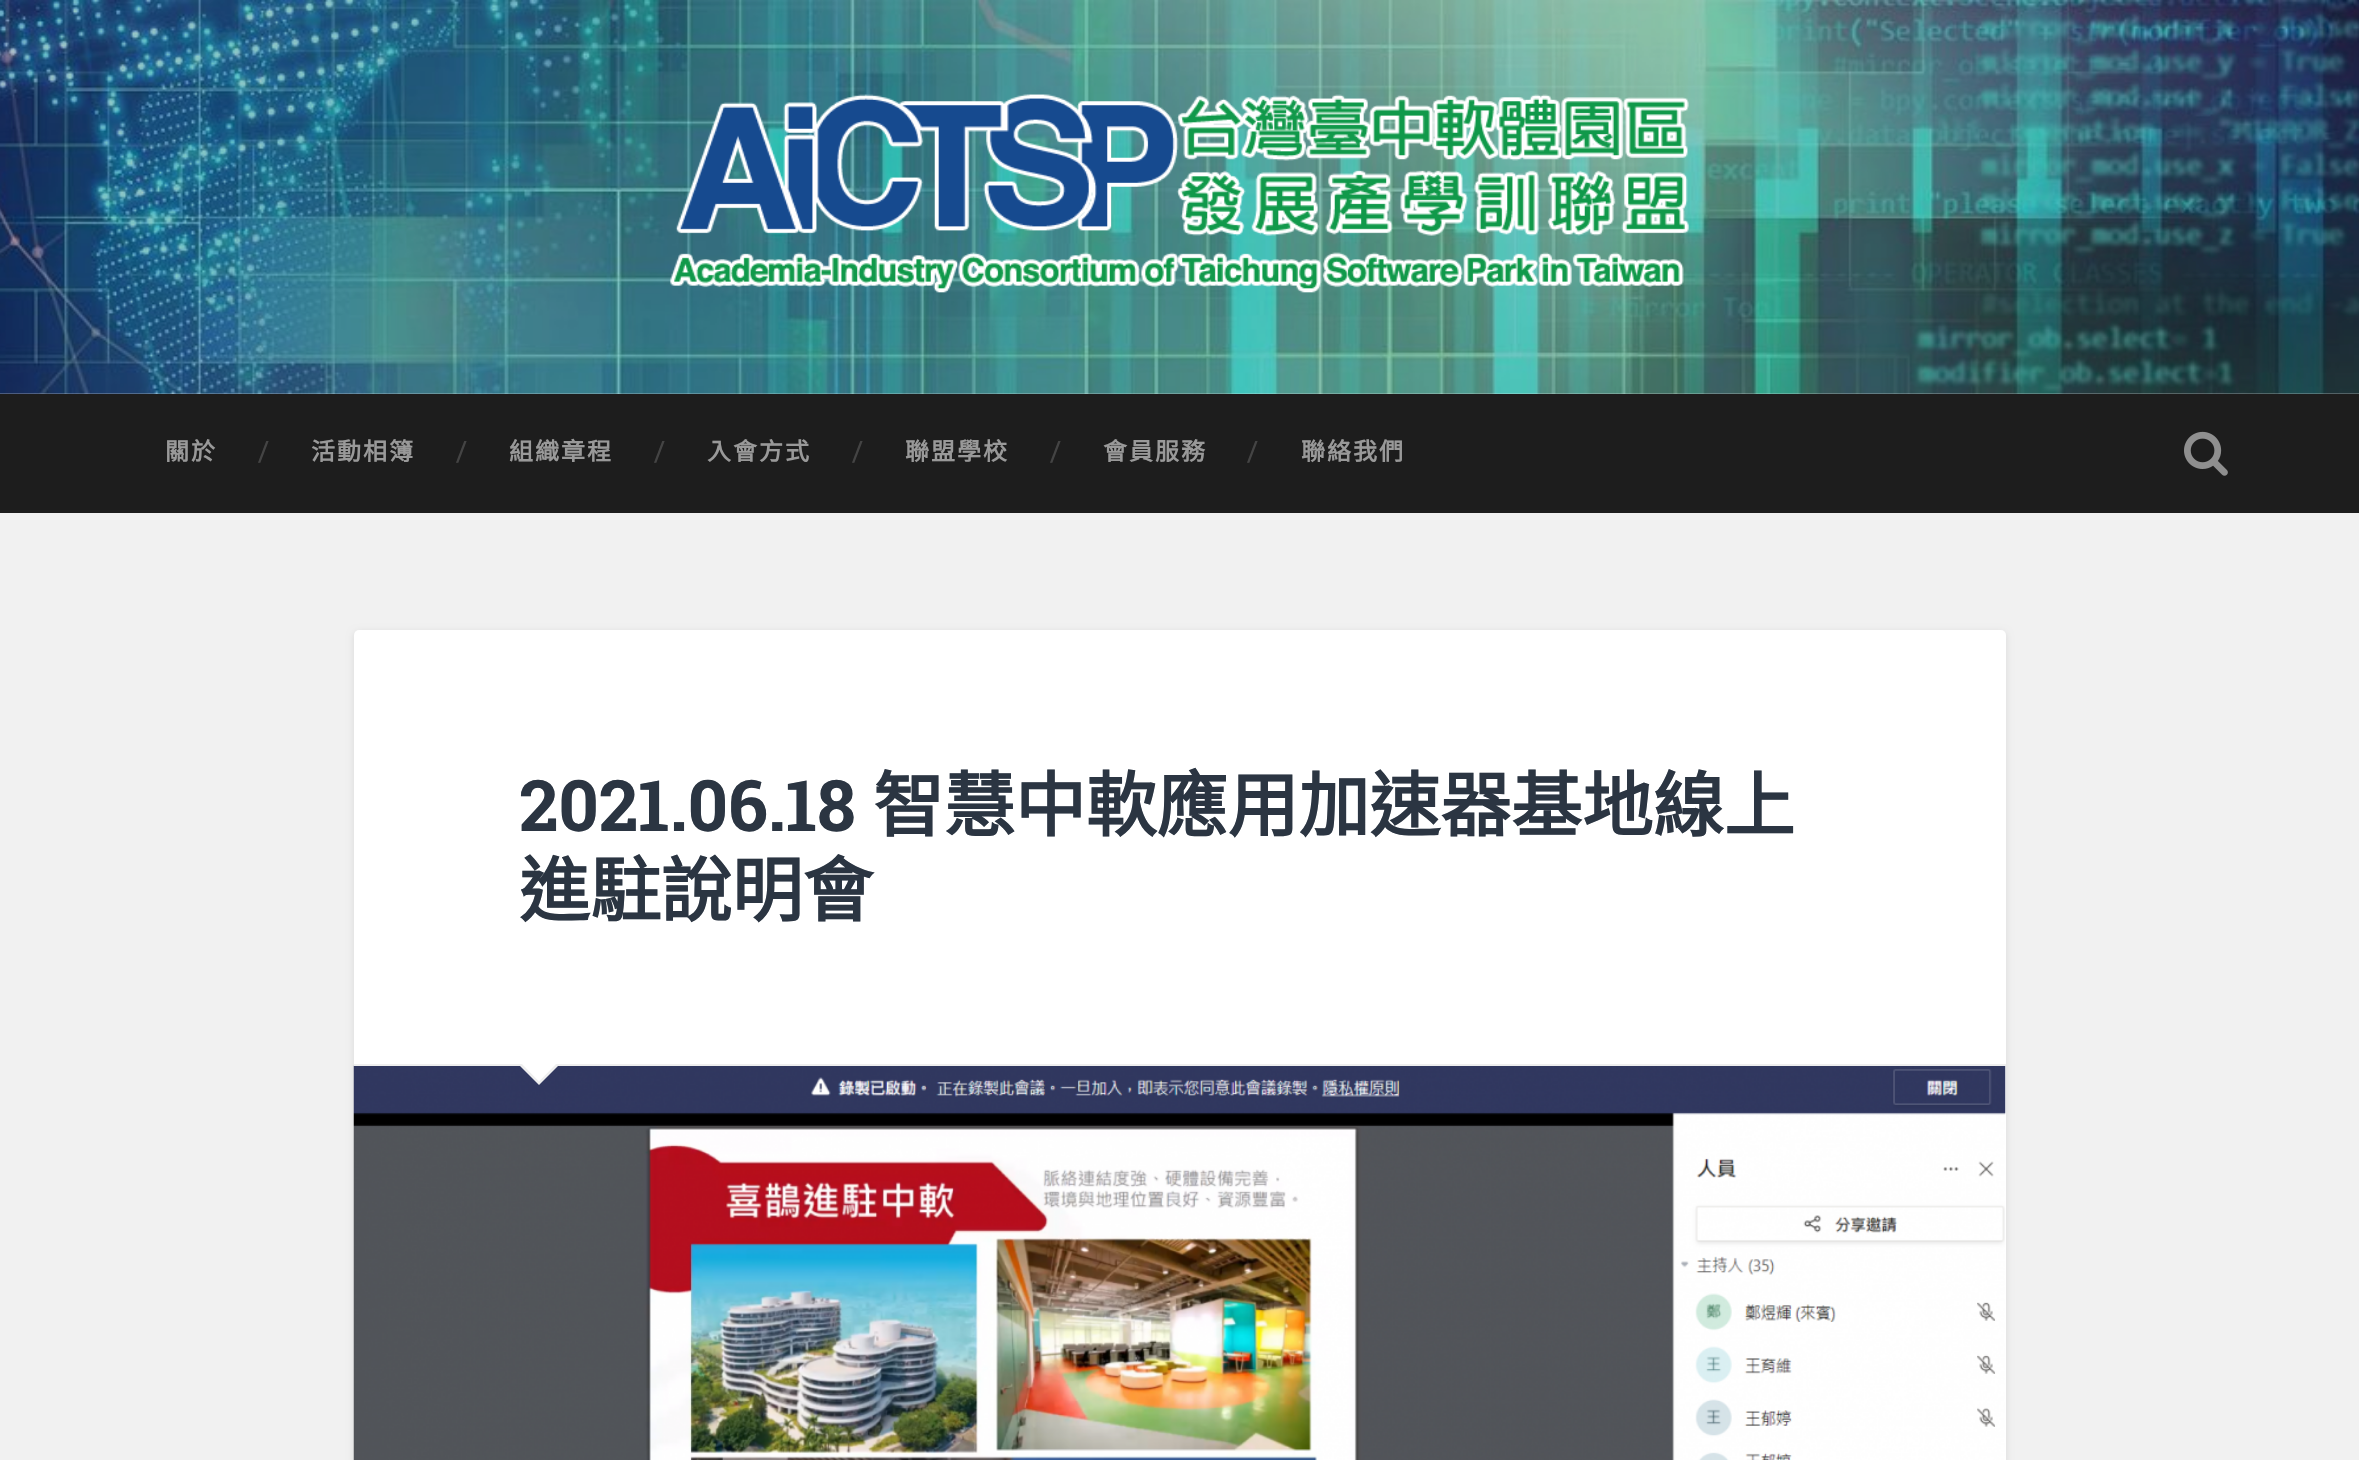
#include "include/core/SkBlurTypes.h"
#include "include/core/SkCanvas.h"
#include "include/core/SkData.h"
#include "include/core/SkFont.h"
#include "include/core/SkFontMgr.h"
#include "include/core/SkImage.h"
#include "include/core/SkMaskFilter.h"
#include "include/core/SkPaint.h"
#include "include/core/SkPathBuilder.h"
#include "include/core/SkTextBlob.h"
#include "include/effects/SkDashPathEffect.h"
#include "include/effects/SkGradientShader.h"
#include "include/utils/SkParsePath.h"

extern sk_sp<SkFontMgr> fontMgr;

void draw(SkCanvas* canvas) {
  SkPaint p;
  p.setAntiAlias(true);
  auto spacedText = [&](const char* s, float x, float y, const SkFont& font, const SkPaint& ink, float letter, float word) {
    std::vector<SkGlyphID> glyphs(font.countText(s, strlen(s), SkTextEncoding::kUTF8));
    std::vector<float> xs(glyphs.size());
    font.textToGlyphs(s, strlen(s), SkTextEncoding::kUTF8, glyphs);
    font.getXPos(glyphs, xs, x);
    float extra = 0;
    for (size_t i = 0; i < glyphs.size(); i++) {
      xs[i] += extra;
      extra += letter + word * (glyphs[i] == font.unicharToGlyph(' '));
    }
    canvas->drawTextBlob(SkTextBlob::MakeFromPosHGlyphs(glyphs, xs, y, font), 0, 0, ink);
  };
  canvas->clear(SkColorSetRGB(241, 241, 241));
  canvas->drawImageRect(SkImages::DeferredFromEncodedData(SkData::MakeFromFileName("images/1.png")), SkRect::MakeLTRB(0, 0, 2359, 394), SkSamplingOptions());
  canvas->drawImageRect(SkImages::DeferredFromEncodedData(SkData::MakeFromFileName("images/2.png")), SkRect::MakeLTRB(670, 94, 1689, 293), SkSamplingOptions());
  p.setColor(SkColorSetRGB(29, 29, 29));
  canvas->drawRect(SkRect::MakeLTRB(0, 394, 2359, 513), p);
  canvas->drawImageRect(SkImages::DeferredFromEncodedData(SkData::MakeFromFileName("images/3.png")), SkRect::MakeLTRB(2184, 431, 2228, 476), SkSamplingOptions());
  p.setColor(SkColorSetARGB(26, 0, 0, 0));
  p.setMaskFilter(SkMaskFilter::MakeBlur(kNormal_SkBlurStyle, 3.5f));
  canvas->drawRoundRect(SkRect::MakeLTRB(354, 632, 2006, 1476), 5, 5, p);
  p.setMaskFilter(nullptr);
  p.setColor(SK_ColorWHITE);
  canvas->drawRoundRect(SkRect::MakeLTRB(354, 630, 2006, 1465), 5, 5, p);
  canvas->drawImageRect(SkImages::DeferredFromEncodedData(SkData::MakeFromFileName("images/4.png")), SkRect::MakeLTRB(353, 1065, 2006, 1460), SkSamplingOptions());
  p.setColor(SkColorSetRGB(238, 238, 238));
  canvas->drawRect(SkRect::MakeLTRB(354, 1064, 2006, 1066), p);
  canvas->drawPath(SkPathBuilder().moveTo(518, 1064).lineTo(560, 1064).lineTo(539, 1085).close().detach(), p);
  p.setColor(SK_ColorWHITE);
  canvas->drawPath(SkPathBuilder().moveTo(520, 1062).lineTo(558, 1062).lineTo(539, 1081.5f).close().detach(), p);
  SkFont font1(fontMgr->matchFamilyStyle("Noto Sans CJK TC", SkFontStyle::Bold()), 24);
  font1.setSubpixel(true);
  p.setColor(SkColorSetRGB(153, 153, 153));
  spacedText("關於", 165, 460, font1, p, 2, 0);
  SkFont font2(fontMgr->matchFamilyStyle("Roboto Slab", SkFontStyle::Normal()), 28);
  font2.setSubpixel(true);
  p.setColor(SkColorSetRGB(68, 68, 68));
  canvas->drawString("/", 258, 461, font2, p);
  p.setColor(SkColorSetRGB(153, 153, 153));
  spacedText("活動相簿", 311, 460, font1, p, 2, 0);
  p.setColor(SkColorSetRGB(68, 68, 68));
  canvas->drawString("/", 456, 461, font2, p);
  p.setColor(SkColorSetRGB(153, 153, 153));
  spacedText("組織章程", 509, 460, font1, p, 2, 0);
  p.setColor(SkColorSetRGB(68, 68, 68));
  canvas->drawString("/", 654, 461, font2, p);
  p.setColor(SkColorSetRGB(153, 153, 153));
  spacedText("入會方式", 707, 460, font1, p, 2, 0);
  p.setColor(SkColorSetRGB(68, 68, 68));
  canvas->drawString("/", 852, 461, font2, p);
  p.setColor(SkColorSetRGB(153, 153, 153));
  spacedText("聯盟學校", 905, 460, font1, p, 2, 0);
  p.setColor(SkColorSetRGB(68, 68, 68));
  canvas->drawString("/", 1050, 461, font2, p);
  p.setColor(SkColorSetRGB(153, 153, 153));
  spacedText("會員服務", 1103, 460, font1, p, 2, 0);
  p.setColor(SkColorSetRGB(68, 68, 68));
  canvas->drawString("/", 1247, 461, font2, p);
  p.setColor(SkColorSetRGB(153, 153, 153));
  spacedText("聯絡我們", 1301, 460, font1, p, 2, 0);
  SkFont font3(fontMgr->matchFamilyStyle("Roboto Slab", SkFontStyle::Bold()), 70.9f);
  font3.setSubpixel(true);
  p.setColor(SkColorSetRGB(43, 53, 66));
  canvas->drawString("2021.06.18", 519, 831, font3, p);
  SkFont font4(fontMgr->matchFamilyStyle("Noto Sans CJK TC", SkFontStyle::Bold()), 70.9f);
  font4.setSubpixel(true);
  canvas->drawString("智慧中軟應用加速器基地線上", 873, 831, font4, p);
  canvas->drawString("進駐說明會", 519, 916, font4, p);
}
